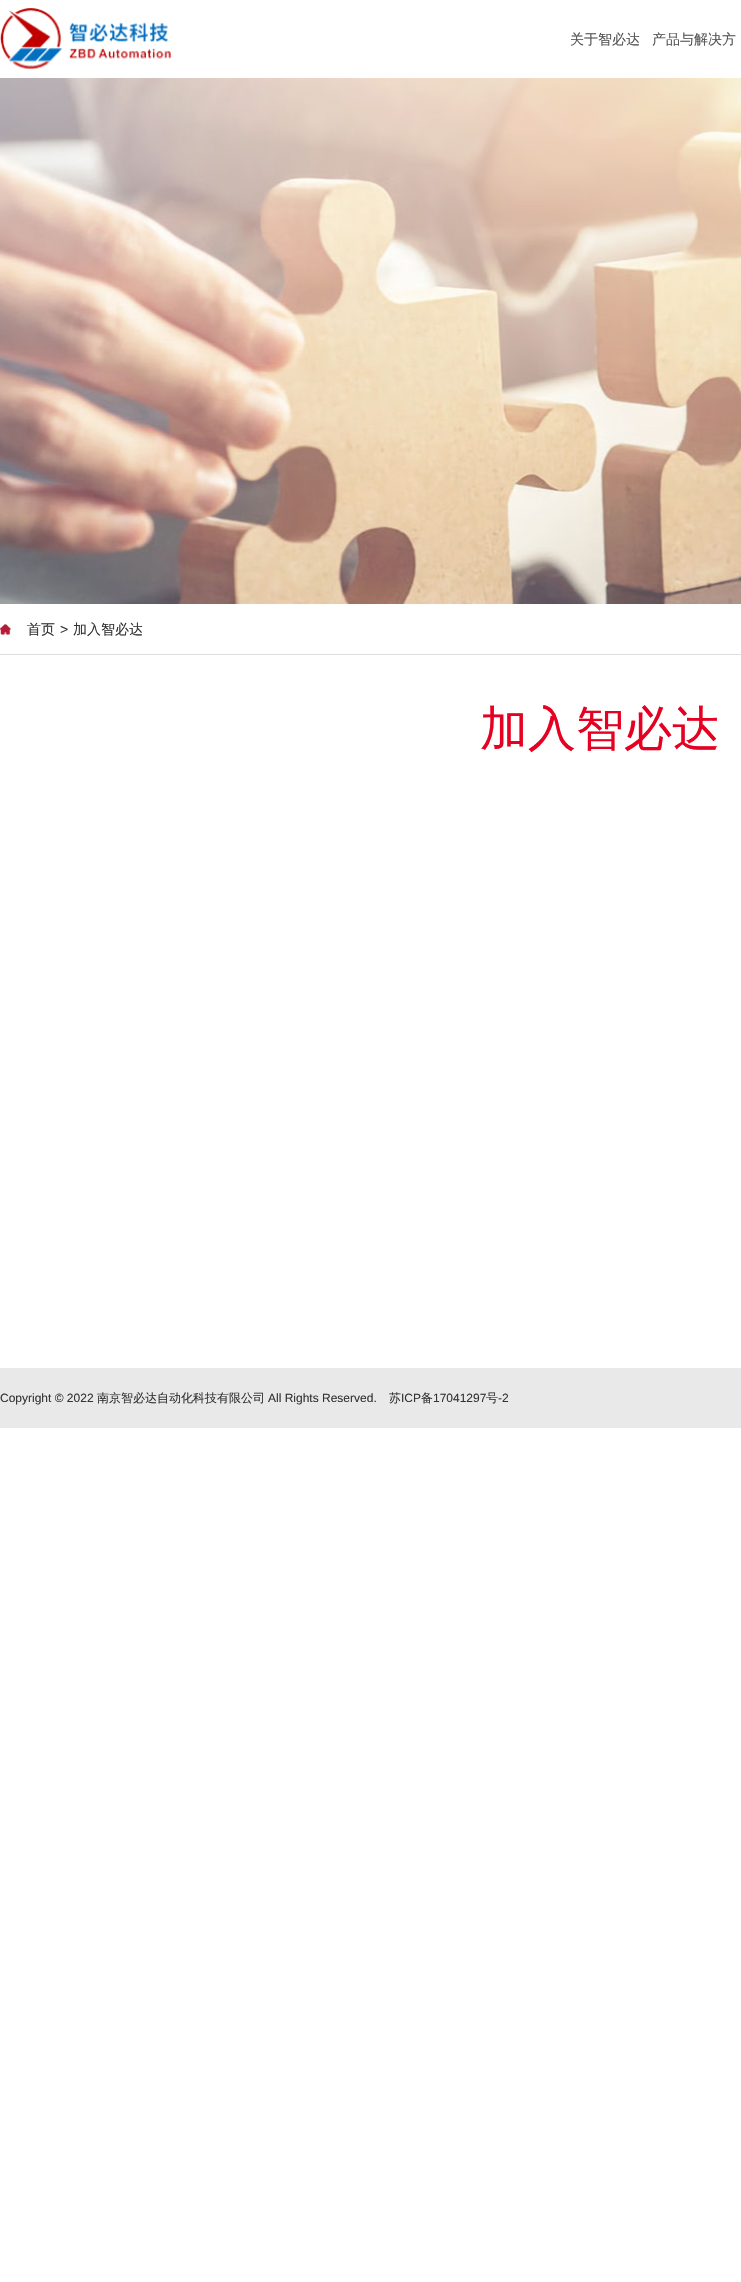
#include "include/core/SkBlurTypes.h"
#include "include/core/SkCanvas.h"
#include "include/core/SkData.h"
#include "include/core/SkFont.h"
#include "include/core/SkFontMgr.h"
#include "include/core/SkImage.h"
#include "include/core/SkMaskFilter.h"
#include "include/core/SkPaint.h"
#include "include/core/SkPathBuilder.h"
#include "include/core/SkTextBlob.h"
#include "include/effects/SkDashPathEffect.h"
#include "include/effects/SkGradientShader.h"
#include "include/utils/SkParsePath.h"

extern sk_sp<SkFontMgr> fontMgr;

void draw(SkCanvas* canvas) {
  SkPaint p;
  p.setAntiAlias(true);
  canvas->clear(SK_ColorWHITE);
  canvas->drawImageRect(SkImages::DeferredFromEncodedData(SkData::MakeFromFileName("images/1.png")), SkRect::MakeLTRB(0, 8, 171, 69), SkSamplingOptions());
  canvas->drawImageRect(SkImages::DeferredFromEncodedData(SkData::MakeFromFileName("images/2.png")), SkRect::MakeLTRB(0, 78, 741, 604), SkSamplingOptions());
  p.setColor(SkColorSetRGB(222, 222, 222));
  canvas->drawRect(SkRect::MakeLTRB(0, 654, 741, 655), p);
  canvas->drawImageRect(SkImages::DeferredFromEncodedData(SkData::MakeFromFileName("images/3.png")), SkRect::MakeLTRB(0, 624, 11, 635), SkSamplingOptions());
  p.setColor(SkColorSetRGB(233, 233, 233));
  canvas->drawRect(SkRect::MakeLTRB(0, 1368, 741, 1428), p);
  SkFont font1(fontMgr->matchFamilyStyle("WenQuanYi Zen Hei", SkFontStyle(500, SkFontStyle::kNormal_Width, SkFontStyle::kUpright_Slant)), 14);
  font1.setSubpixel(true);
  p.setColor(SkColorSetRGB(85, 85, 85));
  canvas->drawString("关于智必达", 570, 44, font1, p);
  canvas->drawString("产品与解决方", 652, 44, font1, p);
  p.setColor(SkColorSetRGB(51, 51, 51));
  canvas->drawString("首页", 27, 634, font1, p);
  SkFont font2(fontMgr->matchFamilyStyle("Liberation Sans", SkFontStyle::Normal()), 14);
  font2.setSubpixel(true);
  canvas->drawString(">", 60, 634, font2, p);
  canvas->drawString("加入智必达", 73, 634, font1, p);
  SkFont font3(fontMgr->matchFamilyStyle("WenQuanYi Zen Hei", SkFontStyle(500, SkFontStyle::kNormal_Width, SkFontStyle::kUpright_Slant)), 48);
  font3.setSubpixel(true);
  p.setColor(SkColorSetRGB(230, 0, 33));
  canvas->drawString("加入智必达", 480, 745, font3, p);
  SkFont font4(fontMgr->matchFamilyStyle("Liberation Sans", SkFontStyle::Normal()), 12);
  font4.setSubpixel(true);
  p.setColor(SkColorSetRGB(51, 51, 51));
  canvas->drawString("Copyright © 2022", 0, 1402, font4, p);
  SkFont font5(fontMgr->matchFamilyStyle("WenQuanYi Zen Hei", SkFontStyle(500, SkFontStyle::kNormal_Width, SkFontStyle::kUpright_Slant)), 12);
  font5.setSubpixel(true);
  canvas->drawString("南京智必达自动化科技有限公司", 97, 1402, font5, p);
  canvas->drawString("All Rights Reserved.", 268, 1402, font4, p);
  canvas->drawString("苏", 389, 1402, font5, p);
  canvas->drawString("ICP", 401, 1402, font4, p);
  canvas->drawString("备", 421, 1402, font5, p);
  canvas->drawString("17041297", 433, 1402, font4, p);
  canvas->drawString("号", 486, 1402, font5, p);
  canvas->drawString("-2", 498, 1402, font4, p);
}
